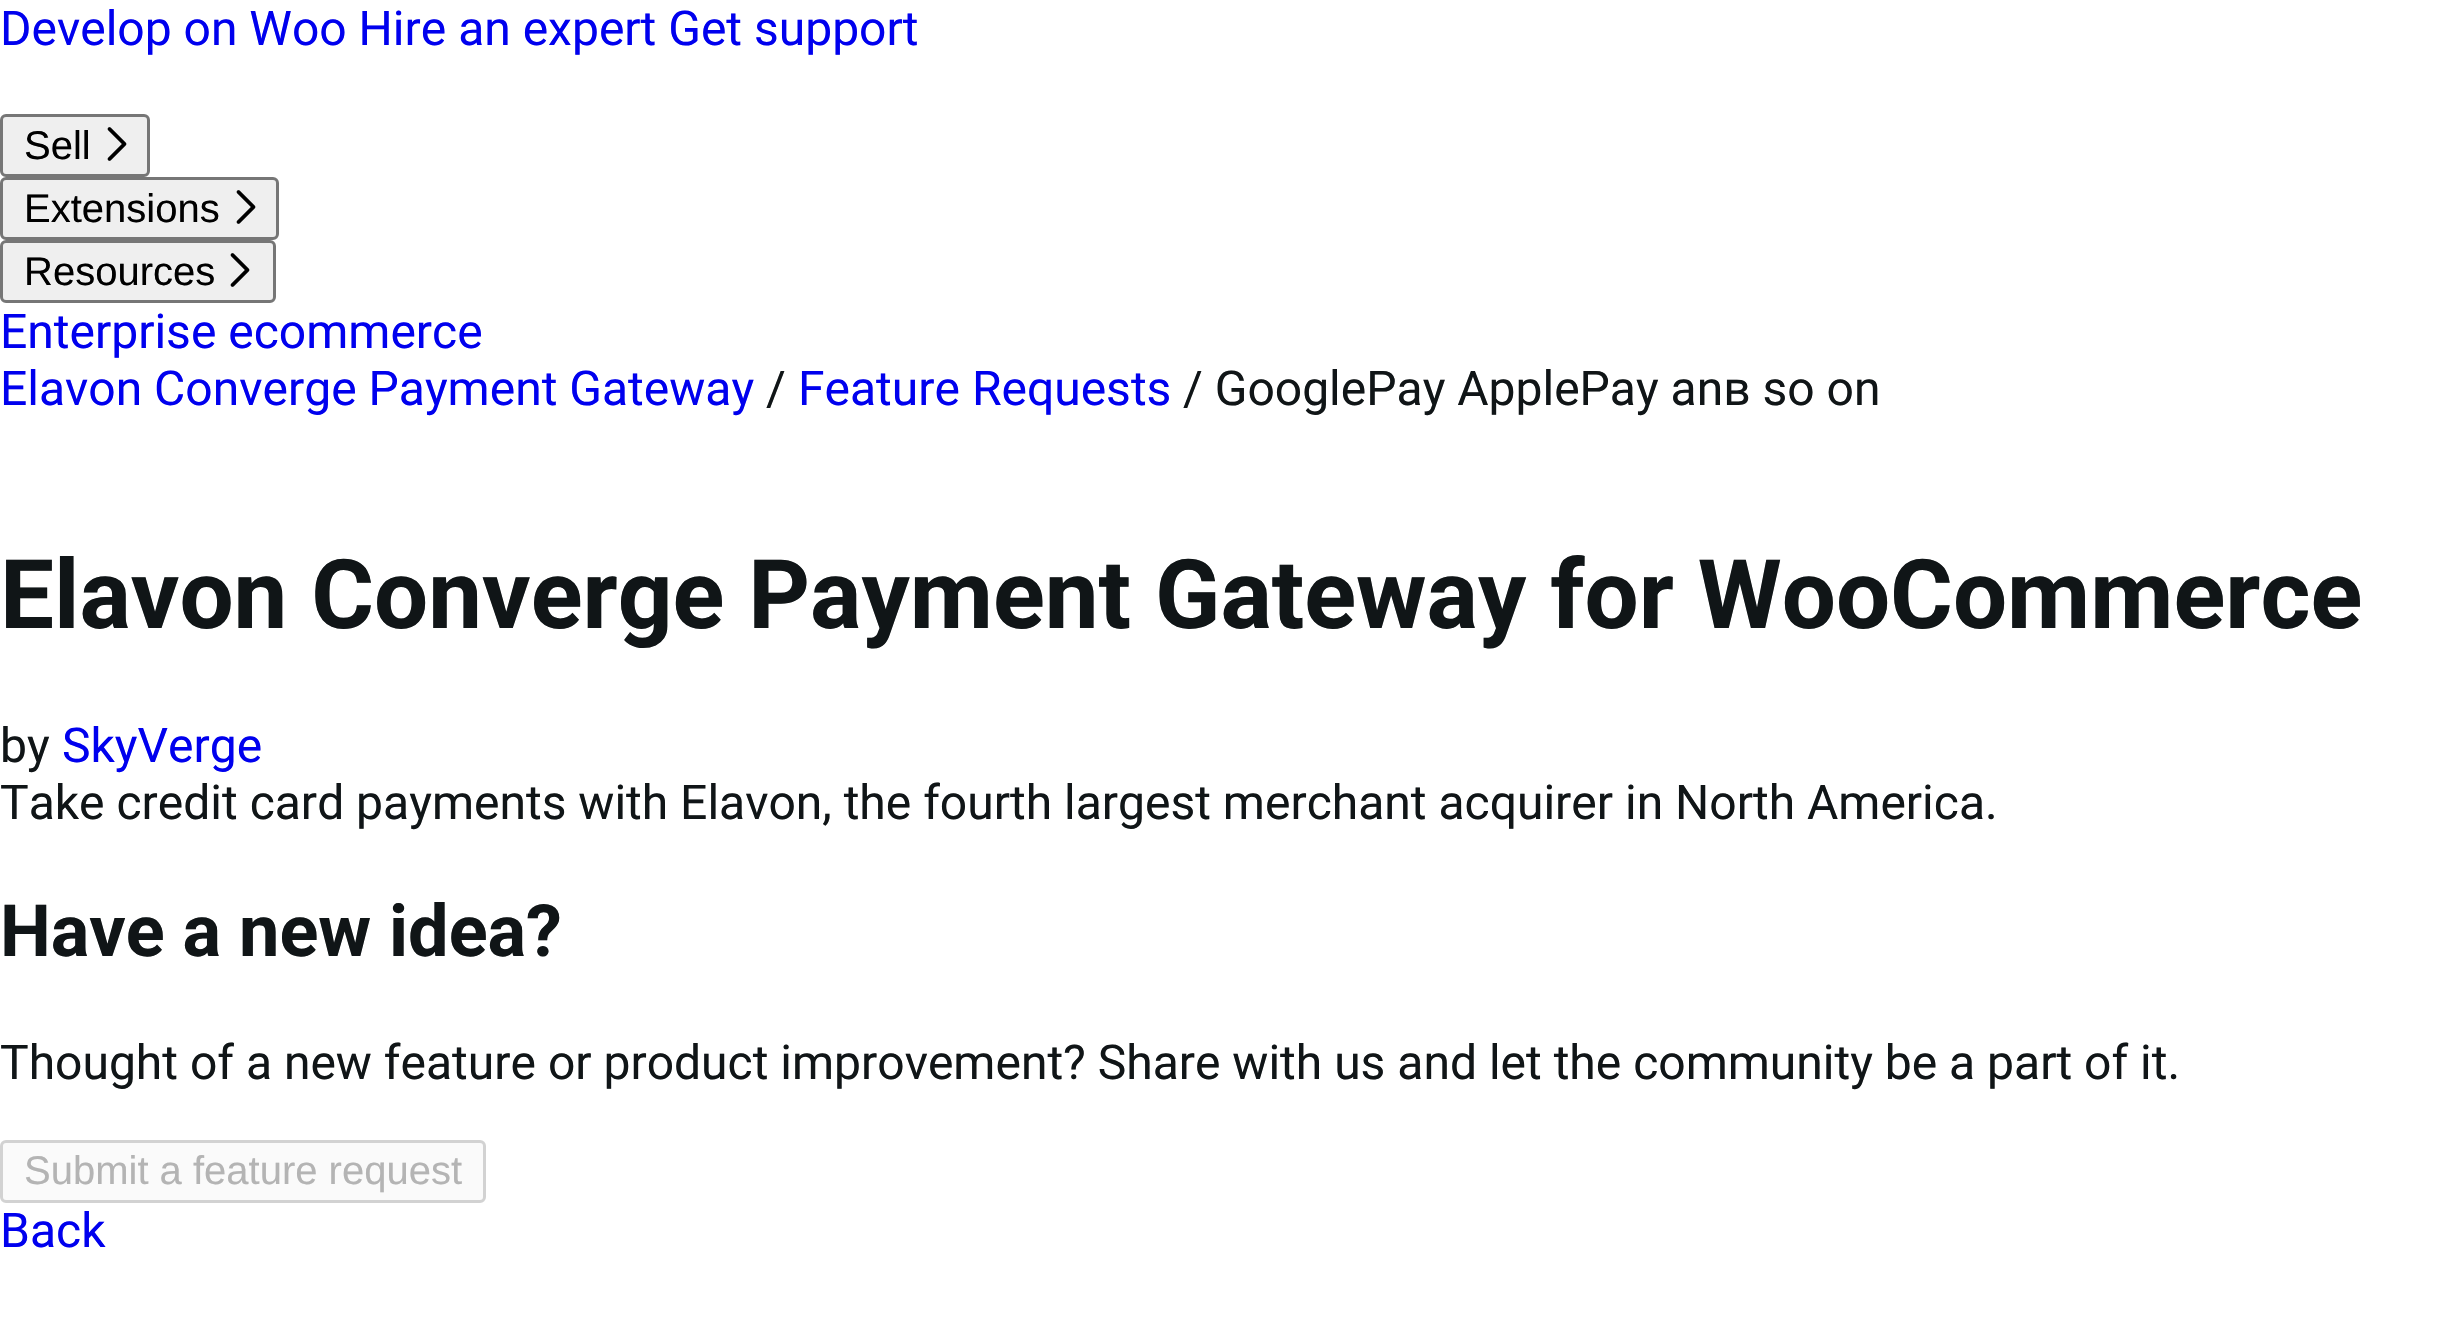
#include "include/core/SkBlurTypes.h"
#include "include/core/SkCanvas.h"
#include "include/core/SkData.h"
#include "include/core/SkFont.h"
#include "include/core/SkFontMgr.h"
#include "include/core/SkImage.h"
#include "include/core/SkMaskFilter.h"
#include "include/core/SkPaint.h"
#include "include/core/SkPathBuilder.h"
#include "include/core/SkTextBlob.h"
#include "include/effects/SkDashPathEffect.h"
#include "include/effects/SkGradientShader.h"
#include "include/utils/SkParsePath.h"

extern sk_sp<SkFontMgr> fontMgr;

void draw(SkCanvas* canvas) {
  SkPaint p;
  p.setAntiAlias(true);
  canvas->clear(SK_ColorWHITE);
  p.setColor(SkColorSetRGB(239, 239, 239));
  canvas->drawRoundRect(SkRect::MakeLTRB(1.5f, 115.5f, 148.5f, 175.5f), 4.5f, 4.5f, p);
  p.setStyle(SkPaint::kStroke_Style);
  p.setStrokeWidth(3);
  p.setColor(SkColorSetRGB(118, 118, 118));
  canvas->drawRoundRect(SkRect::MakeLTRB(1.5f, 115.5f, 148.5f, 175.5f), 4.5f, 4.5f, p);
  canvas->drawImageRect(SkImages::DeferredFromEncodedData(SkData::MakeFromFileName("images/1.png")), SkRect::MakeLTRB(107, 127, 127, 161), SkSamplingOptions());
  p.setStyle(SkPaint::kFill_Style);
  p.setColor(SkColorSetRGB(239, 239, 239));
  canvas->drawRoundRect(SkRect::MakeLTRB(1.5f, 178.5f, 277.5f, 238.5f), 4.5f, 4.5f, p);
  p.setStyle(SkPaint::kStroke_Style);
  p.setColor(SkColorSetRGB(118, 118, 118));
  canvas->drawRoundRect(SkRect::MakeLTRB(1.5f, 178.5f, 277.5f, 238.5f), 4.5f, 4.5f, p);
  canvas->drawImageRect(SkImages::DeferredFromEncodedData(SkData::MakeFromFileName("images/1.png")), SkRect::MakeLTRB(236, 190, 256, 224), SkSamplingOptions());
  p.setStyle(SkPaint::kFill_Style);
  p.setColor(SkColorSetRGB(239, 239, 239));
  canvas->drawRoundRect(SkRect::MakeLTRB(1.5f, 241.5f, 274.5f, 301.5f), 4.5f, 4.5f, p);
  p.setStyle(SkPaint::kStroke_Style);
  p.setColor(SkColorSetRGB(118, 118, 118));
  canvas->drawRoundRect(SkRect::MakeLTRB(1.5f, 241.5f, 274.5f, 301.5f), 4.5f, 4.5f, p);
  canvas->drawImageRect(SkImages::DeferredFromEncodedData(SkData::MakeFromFileName("images/1.png")), SkRect::MakeLTRB(230, 253, 250, 287), SkSamplingOptions());
  p.setStyle(SkPaint::kFill_Style);
  p.setColor(SkColorSetRGB(250, 250, 250));
  canvas->drawRoundRect(SkRect::MakeLTRB(1.5f, 1141.5f, 484.5f, 1201.5f), 4.5f, 4.5f, p);
  p.setStyle(SkPaint::kStroke_Style);
  p.setColor(SkColorSetRGB(210, 210, 210));
  canvas->drawRoundRect(SkRect::MakeLTRB(1.5f, 1141.5f, 484.5f, 1201.5f), 4.5f, 4.5f, p);
  SkFont font1(fontMgr->matchFamilyStyle("Roboto", SkFontStyle::Normal()), 48);
  font1.setSubpixel(true);
  p.setStyle(SkPaint::kFill_Style);
  p.setColor(SkColorSetRGB(0, 0, 238));
  canvas->drawString("Develop on Woo Hire an expert Get support", 0, 45, font1, p);
  SkFont font2(fontMgr->matchFamilyStyle("Liberation Sans", SkFontStyle::Normal()), 40);
  font2.setSubpixel(true);
  p.setColor(SK_ColorBLACK);
  canvas->drawString("Sell", 24, 159, font2, p);
  canvas->drawString("Extensions", 24, 222, font2, p);
  canvas->drawString("Resources", 24, 285, font2, p);
  p.setColor(SkColorSetRGB(0, 0, 238));
  canvas->drawString("Enterprise ecommerce", 0, 348, font1, p);
  canvas->drawString("Elavon Converge Payment Gateway", 0, 405, font1, p);
  p.setColor(SkColorSetRGB(16, 21, 23));
  canvas->drawString("/", 766, 405, font1, p);
  p.setColor(SkColorSetRGB(0, 0, 238));
  canvas->drawString("Feature Requests", 798, 405, font1, p);
  p.setColor(SkColorSetRGB(16, 21, 23));
  canvas->drawString("/ GooglePay ApplePay anв so on", 1183, 405, font1, p);
  SkFont font3(fontMgr->matchFamilyStyle("Roboto", SkFontStyle::Bold()), 96);
  font3.setSubpixel(true);
  canvas->drawString("Elavon Converge Payment Gateway for WooCommerce", 0, 628, font3, p);
  canvas->drawString("by", 0, 762, font1, p);
  p.setColor(SkColorSetRGB(0, 0, 238));
  canvas->drawString("SkyVerge", 62, 762, font1, p);
  p.setColor(SkColorSetRGB(16, 21, 23));
  canvas->drawString("Take credit card payments with Elavon, the fourth largest merchant acquirer in North America.", 0, 819, font1, p);
  SkFont font4(fontMgr->matchFamilyStyle("Roboto", SkFontStyle::Bold()), 72);
  font4.setSubpixel(true);
  canvas->drawString("Have a new idea?", 0, 956, font4, p);
  canvas->drawString("Thought of a new feature or product improvement? Share with us and let the community be a part of it.", 0, 1079, font1, p);
  p.setColor(SkColorSetRGB(180, 180, 180));
  canvas->drawString("Submit a feature request", 24, 1184, font2, p);
  p.setColor(SkColorSetRGB(0, 0, 238));
  canvas->drawString("Back", 0, 1247, font1, p);
}
